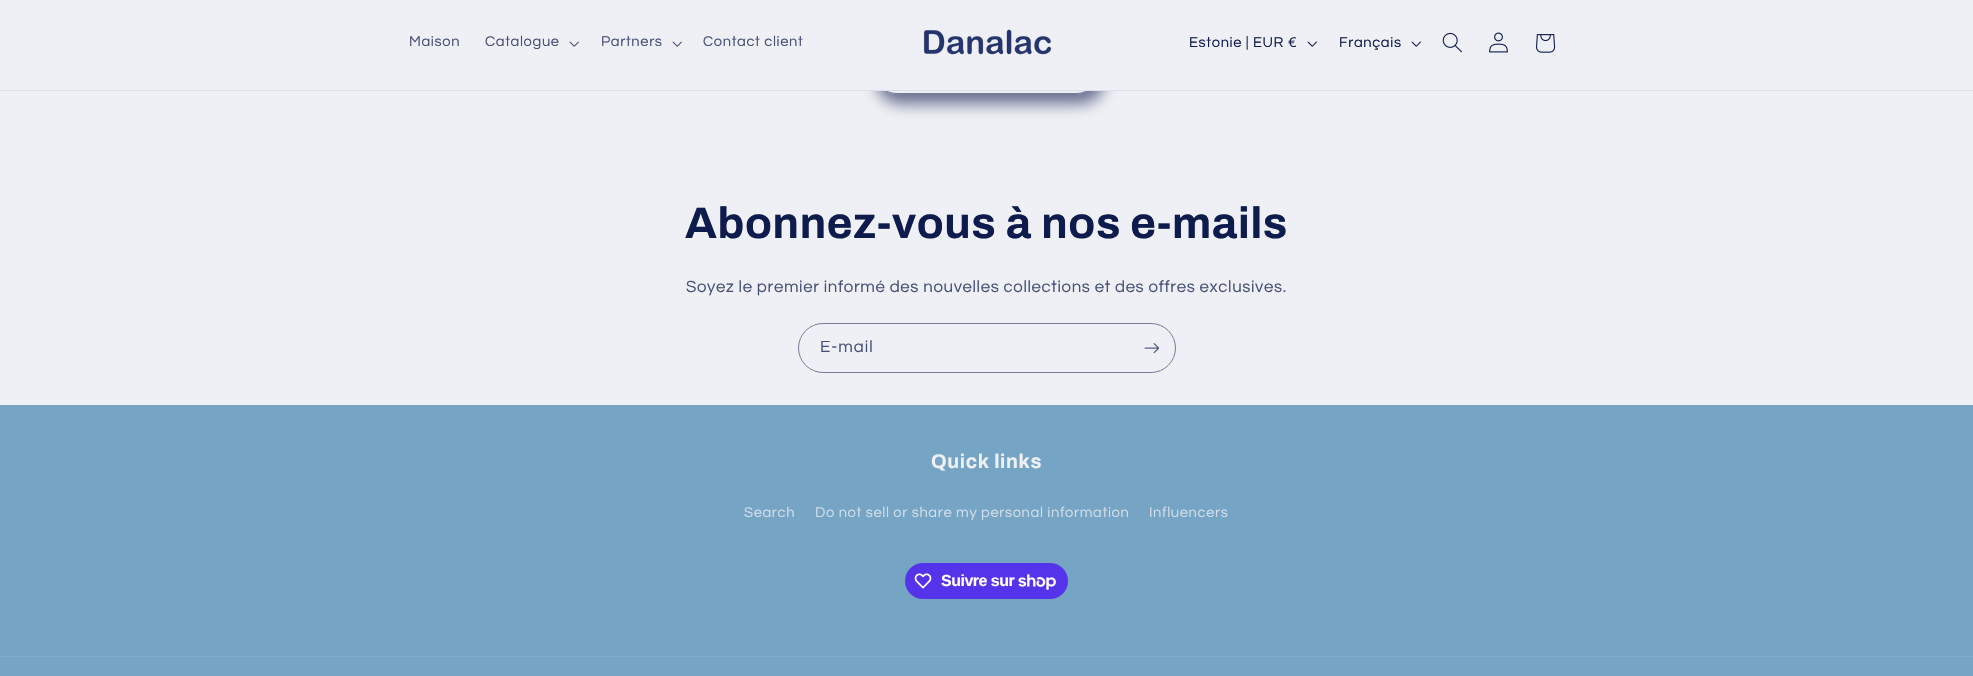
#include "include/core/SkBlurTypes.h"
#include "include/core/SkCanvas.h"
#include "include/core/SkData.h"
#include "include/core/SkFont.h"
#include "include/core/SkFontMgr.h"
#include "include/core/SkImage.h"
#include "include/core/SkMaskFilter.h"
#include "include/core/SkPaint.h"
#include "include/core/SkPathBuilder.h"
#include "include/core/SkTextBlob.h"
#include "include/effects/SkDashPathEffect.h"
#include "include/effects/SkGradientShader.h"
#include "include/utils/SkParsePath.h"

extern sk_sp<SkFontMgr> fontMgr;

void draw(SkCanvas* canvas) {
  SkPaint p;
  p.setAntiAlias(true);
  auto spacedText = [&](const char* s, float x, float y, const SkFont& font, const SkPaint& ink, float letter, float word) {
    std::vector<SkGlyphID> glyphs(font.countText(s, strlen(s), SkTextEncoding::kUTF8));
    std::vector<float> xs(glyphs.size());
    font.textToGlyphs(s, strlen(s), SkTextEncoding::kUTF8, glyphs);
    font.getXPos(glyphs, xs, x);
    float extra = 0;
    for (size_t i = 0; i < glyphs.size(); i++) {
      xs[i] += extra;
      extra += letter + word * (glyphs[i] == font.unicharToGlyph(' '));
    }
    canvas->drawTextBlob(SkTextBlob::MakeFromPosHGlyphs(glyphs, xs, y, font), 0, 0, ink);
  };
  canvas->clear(SkColorSetRGB(239, 240, 245));
  p.setColor(SkColorSetARGB(153, 14, 27, 77));
  p.setMaskFilter(SkMaskFilter::MakeBlur(kNormal_SkBlurStyle, 7.5f));
  canvas->drawRoundRect(SkRect::MakeLTRB(876, 54, 1105, 104), 25, 25, p);
  p.setMaskFilter(nullptr);
  p.setColor(SkColorSetRGB(239, 240, 245));
  canvas->drawRoundRect(SkRect::MakeLTRB(872.5f, 44.5f, 1100.5f, 93.5f), 24.5f, 24.5f, p);
  p.setStyle(SkPaint::kStroke_Style);
  p.setStrokeWidth(1);
  canvas->drawRoundRect(SkRect::MakeLTRB(872.5f, 44.5f, 1100.5f, 93.5f), 24.5f, 24.5f, p);
  p.setColor(SkColorSetARGB(140, 14, 27, 77));
  canvas->drawRoundRect(SkRect::MakeLTRB(872.5f, 44.5f, 1100.5f, 93.5f), 24.5f, 24.5f, p);
  p.setStyle(SkPaint::kFill_Style);
  p.setColor(SkColorSetRGB(239, 240, 245));
  canvas->drawRect(SkRect::MakeLTRB(861, 38, 1120, 90), p);
  p.setColor(SkColorSetRGB(221, 223, 232));
  canvas->drawRect(SkRect::MakeLTRB(0, 90, 1973, 91), p);
  canvas->drawImageRect(SkImages::DeferredFromEncodedData(SkData::MakeFromFileName("images/1.png")), SkRect::MakeLTRB(569, 41, 579, 47), SkSamplingOptions());
  canvas->drawImageRect(SkImages::DeferredFromEncodedData(SkData::MakeFromFileName("images/1.png")), SkRect::MakeLTRB(672, 41, 682, 47), SkSamplingOptions());
  canvas->drawImageRect(SkImages::DeferredFromEncodedData(SkData::MakeFromFileName("images/2.png")), SkRect::MakeLTRB(923, 29, 1052, 55), SkSamplingOptions());
  canvas->drawImageRect(SkImages::DeferredFromEncodedData(SkData::MakeFromFileName("images/3.png")), SkRect::MakeLTRB(1307, 41, 1317, 47), SkSamplingOptions());
  canvas->drawImageRect(SkImages::DeferredFromEncodedData(SkData::MakeFromFileName("images/3.png")), SkRect::MakeLTRB(1411, 41, 1421, 47), SkSamplingOptions());
  canvas->drawImageRect(SkImages::DeferredFromEncodedData(SkData::MakeFromFileName("images/4.png")), SkRect::MakeLTRB(1442, 32, 1462, 53), SkSamplingOptions());
  canvas->drawImageRect(SkImages::DeferredFromEncodedData(SkData::MakeFromFileName("images/5.png")), SkRect::MakeLTRB(1489, 32, 1508, 53), SkSamplingOptions());
  canvas->drawImageRect(SkImages::DeferredFromEncodedData(SkData::MakeFromFileName("images/6.png")), SkRect::MakeLTRB(1536, 34, 1556, 53), SkSamplingOptions());
  p.setStyle(SkPaint::kStroke_Style);
  p.setColor(SkColorSetRGB(115, 123, 153));
  canvas->drawRoundRect(SkRect::MakeLTRB(798.5f, 323.5f, 1175.5f, 372.5f), 24.5f, 24.5f, p);
  canvas->drawImageRect(SkImages::DeferredFromEncodedData(SkData::MakeFromFileName("images/7.png")), SkRect::MakeLTRB(1144, 343, 1159, 354), SkSamplingOptions());
  p.setStyle(SkPaint::kFill_Style);
  p.setColor(SkColorSetRGB(118, 164, 196));
  canvas->drawRect(SkRect::MakeLTRB(0, 405, 1973, 676), p);
  p.setColor(SkColorSetRGB(84, 51, 235));
  canvas->drawRoundRect(SkRect::MakeLTRB(905, 563, 1068, 599), 18, 18, p);
  canvas->drawImageRect(SkImages::DeferredFromEncodedData(SkData::MakeFromFileName("images/8.png")), SkRect::MakeLTRB(914, 573, 932, 589), SkSamplingOptions());
  canvas->drawImageRect(SkImages::DeferredFromEncodedData(SkData::MakeFromFileName("images/9.png")), SkRect::MakeLTRB(1018, 574, 1056, 590), SkSamplingOptions());
  p.setColor(SkColorSetRGB(128, 170, 200));
  canvas->drawRect(SkRect::MakeLTRB(0, 656, 1973, 657), p);
  SkFont font1(fontMgr->matchFamilyStyle("Questrial", SkFontStyle::Normal()), 14.7f);
  font1.setSubpixel(true);
  p.setColor(SkColorSetRGB(70, 80, 119));
  spacedText("Maison", 409, 46, font1, p, 0.63f, 0);
  spacedText("Catalogue", 485, 46, font1, p, 0.63f, 0);
  spacedText("Partners", 601, 46, font1, p, 0.63f, 0);
  spacedText("Contact client", 703, 46, font1, p, 0.63f, 0);
  p.setColor(SkColorSetRGB(14, 27, 77));
  spacedText("Estonie | EUR €", 1189, 47, font1, p, 0.63f, 0);
  spacedText("Français", 1339, 47, font1, p, 0.63f, 0);
  SkFont font2(fontMgr->matchFamilyStyle("Archivo", SkFontStyle::Bold()), 44);
  font2.setSubpixel(true);
  spacedText("Abonnez-vous à nos e-mails", 685, 238, font2, p, 0.65f, 0);
  SkFont font3(fontMgr->matchFamilyStyle("Questrial", SkFontStyle::Normal()), 16.8f);
  font3.setSubpixel(true);
  p.setColor(SkColorSetRGB(70, 80, 119));
  spacedText("Soyez le premier informé des nouvelles collections et des offres exclusives.", 686, 292, font3, p, 0.63f, 0);
  spacedText("E-mail", 820, 352, font3, p, 1, 0);
  SkFont font4(fontMgr->matchFamilyStyle("Archivo", SkFontStyle::Bold()), 19.75f);
  font4.setSubpixel(true);
  p.setColor(SkColorSetRGB(239, 240, 245));
  spacedText("Quick links", 931, 468, font4, p, 0.65f, 0);
  p.setColor(SkColorSetRGB(209, 221, 233));
  spacedText("Search", 744, 517, font1, p, 0.63f, 0);
  spacedText("Do not sell or share my personal information", 815, 517, font1, p, 0.63f, 0);
  spacedText("Influencers", 1149, 517, font1, p, 0.63f, 0);
  SkFont font5(fontMgr->matchFamilyStyle("Liberation Sans", SkFontStyle::Bold()), 16);
  font5.setSubpixel(true);
  p.setColor(SK_ColorWHITE);
  spacedText("Suivre sur", 941, 586, font5, p, -0.5f, 0);
}
